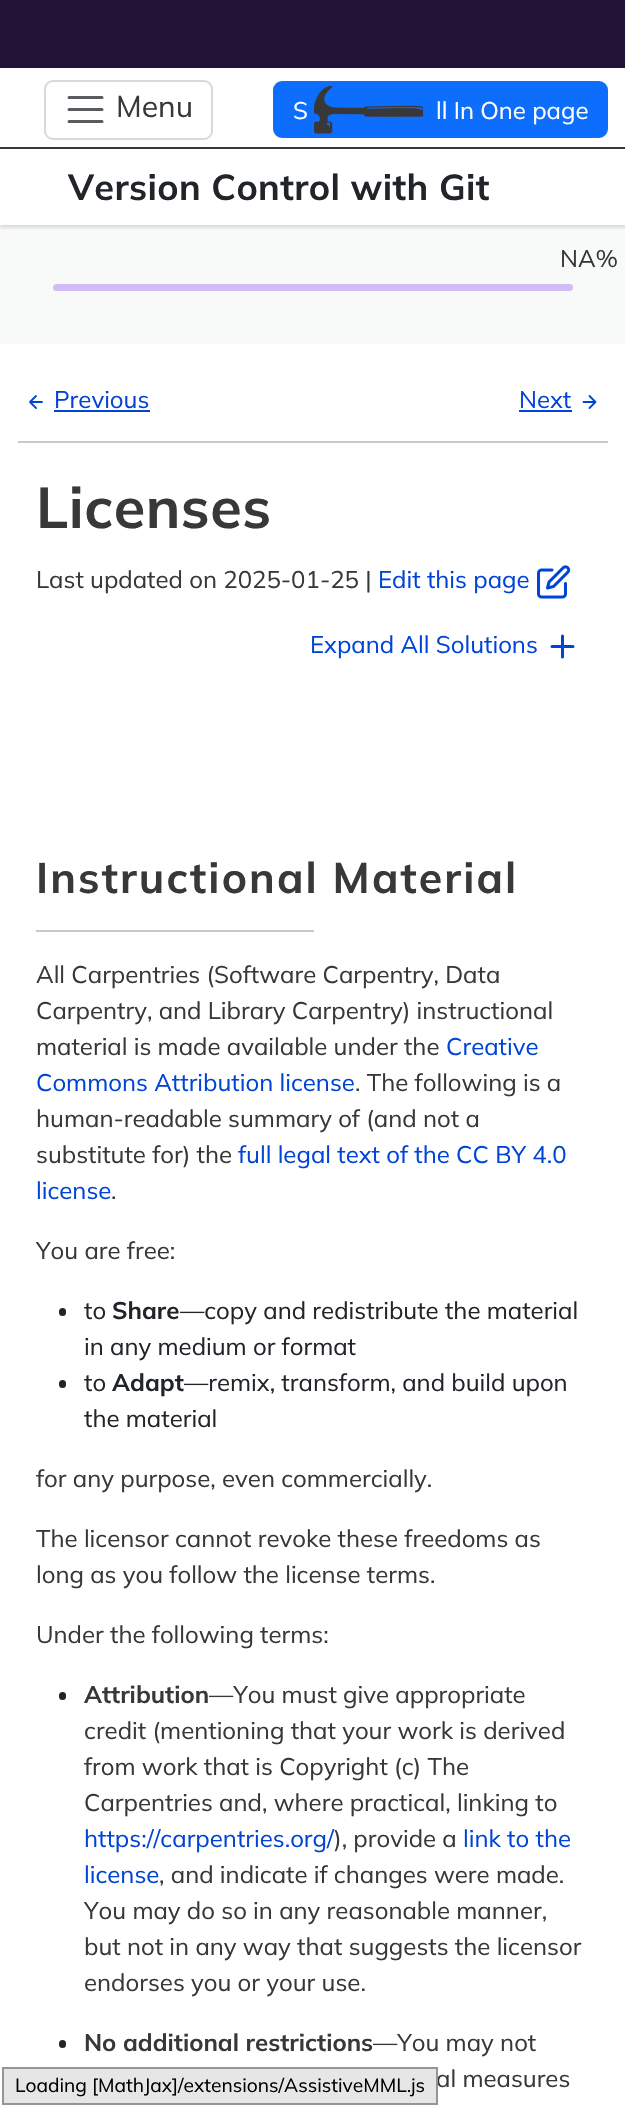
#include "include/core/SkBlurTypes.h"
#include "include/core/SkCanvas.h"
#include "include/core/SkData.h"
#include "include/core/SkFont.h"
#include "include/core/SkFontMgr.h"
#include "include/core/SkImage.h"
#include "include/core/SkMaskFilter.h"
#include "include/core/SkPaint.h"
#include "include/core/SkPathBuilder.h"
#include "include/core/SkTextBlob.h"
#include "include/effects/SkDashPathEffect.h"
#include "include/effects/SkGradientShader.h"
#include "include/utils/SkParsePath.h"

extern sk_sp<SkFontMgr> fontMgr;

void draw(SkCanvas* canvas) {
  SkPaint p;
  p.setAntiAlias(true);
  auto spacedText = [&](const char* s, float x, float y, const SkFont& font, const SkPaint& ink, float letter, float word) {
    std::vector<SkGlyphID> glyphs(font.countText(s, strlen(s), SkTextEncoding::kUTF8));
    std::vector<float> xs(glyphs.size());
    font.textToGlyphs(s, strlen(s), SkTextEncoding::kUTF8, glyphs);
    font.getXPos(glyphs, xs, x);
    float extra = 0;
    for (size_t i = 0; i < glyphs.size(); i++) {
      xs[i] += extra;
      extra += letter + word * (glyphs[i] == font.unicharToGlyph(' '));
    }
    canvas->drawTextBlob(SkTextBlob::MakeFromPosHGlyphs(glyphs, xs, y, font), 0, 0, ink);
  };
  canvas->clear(SK_ColorWHITE);
  p.setColor(SkColorSetRGB(32, 19, 53));
  canvas->drawRect(SkRect::MakeLTRB(0, 0, 625, 68), p);
  p.setColor(SkColorSetRGB(56, 56, 56));
  canvas->drawRect(SkRect::MakeLTRB(0, 147, 625, 149), p);
  p.setStyle(SkPaint::kStroke_Style);
  p.setStrokeWidth(2);
  p.setColor(SkColorSetRGB(217, 217, 217));
  canvas->drawRoundRect(SkRect::MakeLTRB(45, 81, 212, 139), 8, 8, p);
  p.setStrokeWidth(3);
  p.setStrokeCap(SkPaint::kRound_Cap);
  p.setColor(SkColorSetRGB(89, 92, 95));
  canvas->drawPath(SkPathBuilder().moveTo(69, 97.5f).lineTo(102, 97.5f).moveTo(69, 109.5f).lineTo(102, 109.5f).moveTo(69, 121.5f).lineTo(102, 121.5f).detach(), p);
  p.setStyle(SkPaint::kFill_Style);
  p.setColor(SkColorSetRGB(13, 110, 253));
  canvas->drawRoundRect(SkRect::MakeLTRB(274, 82, 607, 137), 8, 8, p);
  p.setStyle(SkPaint::kStroke_Style);
  p.setStrokeWidth(2);
  p.setStrokeCap(SkPaint::kButt_Cap);
  canvas->drawRoundRect(SkRect::MakeLTRB(274, 82, 607, 137), 8, 8, p);
  canvas->drawImageRect(SkImages::DeferredFromEncodedData(SkData::MakeFromFileName("images/1.png")), SkRect::MakeLTRB(314, 86, 423, 134), SkSamplingOptions());
  p.setStyle(SkPaint::kFill_Style);
  p.setColor(SkColorSetRGB(248, 249, 249));
  canvas->drawRect(SkRect::MakeLTRB(0, 225, 625, 344), p);
  canvas->save();
  canvas->clipRect(SkRect::MakeLTRB(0, 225, 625, 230));
  p.setColor(SkColorSetARGB(38, 60, 55, 68));
  p.setMaskFilter(SkMaskFilter::MakeBlur(kNormal_SkBlurStyle, 1.5f));
  canvas->drawRect(SkRect::MakeLTRB(0, 167, 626, 228), p);
  p.setMaskFilter(nullptr);
  canvas->restore();
  p.setColor(SkColorSetRGB(210, 188, 244));
  canvas->drawRoundRect(SkRect::MakeLTRB(53, 284, 573, 291), 3.5f, 3.5f, p);
  p.setColor(SkColorSetRGB(0, 68, 215));
  canvas->drawRect(SkRect::MakeLTRB(54, 410, 150, 412), p);
  p.setStyle(SkPaint::kStroke_Style);
  p.setStrokeWidth(1.8f);
  p.setStrokeCap(SkPaint::kRound_Cap);
  p.setStrokeJoin(SkPaint::kRound_Join);
  canvas->drawPath(SkPathBuilder().moveTo(42, 402).lineTo(30, 402).moveTo(36, 408).lineTo(30, 402).lineTo(36, 396).detach(), p);
  p.setStyle(SkPaint::kFill_Style);
  canvas->drawRect(SkRect::MakeLTRB(519, 410, 572, 412), p);
  p.setStyle(SkPaint::kStroke_Style);
  canvas->drawPath(SkPathBuilder().moveTo(583.5f, 402).lineTo(595.5f, 402).moveTo(589.5f, 396).lineTo(595.5f, 402).lineTo(589.5f, 408).detach(), p);
  p.setStyle(SkPaint::kFill_Style);
  p.setColor(SkColorSetRGB(200, 201, 202));
  canvas->drawRect(SkRect::MakeLTRB(18, 441, 608, 443), p);
  canvas->drawImageRect(SkImages::DeferredFromEncodedData(SkData::MakeFromFileName("images/2.png")), SkRect::MakeLTRB(537, 565, 571, 599), SkSamplingOptions());
  p.setStyle(SkPaint::kStroke_Style);
  p.setStrokeWidth(3);
  p.setColor(SkColorSetRGB(0, 68, 215));
  canvas->drawPath(SkPathBuilder().moveTo(562.5f, 636).lineTo(562.5f, 657).moveTo(552, 646.5f).lineTo(573, 646.5f).detach(), p);
  p.setStyle(SkPaint::kFill_Style);
  p.setColor(SkColorSetRGB(200, 201, 202));
  canvas->drawRect(SkRect::MakeLTRB(36, 930, 314, 932), p);
  p.setColor(SkColorSetRGB(33, 37, 41));
  canvas->drawRoundRect(SkRect::MakeLTRB(59, 1308, 66, 1316), 3.5f, 3.5f, p);
  canvas->drawRoundRect(SkRect::MakeLTRB(59, 1380, 66, 1388), 3.5f, 3.5f, p);
  canvas->drawRoundRect(SkRect::MakeLTRB(59, 1692, 66, 1700), 3.5f, 3.5f, p);
  canvas->drawRoundRect(SkRect::MakeLTRB(59, 2040, 66, 2048), 3.5f, 3.5f, p);
  SkFont font1(fontMgr->matchFamilyStyle("Mulish", SkFontStyle::Normal()), 30);
  font1.setSubpixel(true);
  p.setColor(SkColorSetRGB(56, 56, 56));
  canvas->drawString("Menu", 116, 117, font1, p);
  SkFont font2(fontMgr->matchFamilyStyle("Mulish", SkFontStyle::Normal()), 24);
  font2.setSubpixel(true);
  p.setColor(SK_ColorWHITE);
  canvas->drawString("S", 293, 119, font2, p);
  canvas->drawString("ll In One page", 436, 119, font2, p);
  SkFont font3(fontMgr->matchFamilyStyle("Mulish", SkFontStyle::Bold()), 36);
  font3.setSubpixel(true);
  p.setColor(SkColorSetRGB(33, 37, 41));
  spacedText("Version Control with Git", 68, 200, font3, p, 0.4f, 0);
  p.setColor(SkColorSetRGB(56, 56, 56));
  canvas->drawString("NA%", 560, 267, font2, p);
  p.setColor(SkColorSetRGB(0, 68, 215));
  canvas->drawString("Previous", 54, 408, font2, p);
  canvas->drawString("Next", 519, 408, font2, p);
  SkFont font4(fontMgr->matchFamilyStyle("Mulish", SkFontStyle::Bold()), 57.5f);
  font4.setSubpixel(true);
  p.setColor(SkColorSetRGB(56, 56, 56));
  spacedText("Licenses", 36, 528, font4, p, 0.5f, 0);
  canvas->drawString("Last updated on 2025-01-25 |", 36, 588, font2, p);
  p.setColor(SkColorSetRGB(0, 68, 215));
  canvas->drawString("Edit this page", 378, 588, font2, p);
  canvas->drawString("Expand All Solutions", 310, 653, font2, p);
  SkFont font5(fontMgr->matchFamilyStyle("Mulish", SkFontStyle::Bold()), 42.75f);
  font5.setSubpixel(true);
  p.setColor(SkColorSetRGB(56, 56, 56));
  spacedText("Instructional Material", 36, 893, font5, p, 2.1f, 0);
  canvas->drawString("All Carpentries (Software Carpentry, Data", 36, 983, font2, p);
  canvas->drawString("Carpentry, and Library Carpentry) instructional", 36, 1019, font2, p);
  canvas->drawString("material is made available under the", 36, 1055, font2, p);
  p.setColor(SkColorSetRGB(0, 68, 215));
  canvas->drawString("Creative", 446, 1055, font2, p);
  canvas->drawString("Commons Attribution license", 36, 1091, font2, p);
  p.setColor(SkColorSetRGB(56, 56, 56));
  canvas->drawString(". The following is a", 355, 1091, font2, p);
  canvas->drawString("human-readable summary of (and not a", 36, 1127, font2, p);
  canvas->drawString("substitute for) the", 36, 1163, font2, p);
  p.setColor(SkColorSetRGB(0, 68, 215));
  canvas->drawString("full legal text of the CC BY 4.0", 238, 1163, font2, p);
  canvas->drawString("license", 36, 1199, font2, p);
  p.setColor(SkColorSetRGB(56, 56, 56));
  canvas->drawString(".", 111, 1199, font2, p);
  canvas->drawString("You are free:", 36, 1259, font2, p);
  p.setColor(SkColorSetRGB(33, 37, 41));
  canvas->drawString("to", 84, 1319, font2, p);
  SkFont font6(fontMgr->matchFamilyStyle("Mulish", SkFontStyle::Bold()), 24);
  font6.setSubpixel(true);
  canvas->drawString("Share", 112, 1319, font6, p);
  canvas->drawString("—copy and redistribute the material", 180, 1319, font2, p);
  canvas->drawString("in any medium or format", 84, 1355, font2, p);
  canvas->drawString("to", 84, 1391, font2, p);
  canvas->drawString("Adapt", 112, 1391, font6, p);
  canvas->drawString("—remix, transform, and build upon", 184, 1391, font2, p);
  canvas->drawString("the material", 84, 1427, font2, p);
  p.setColor(SkColorSetRGB(56, 56, 56));
  canvas->drawString("for any purpose, even commercially.", 36, 1487, font2, p);
  canvas->drawString("The licensor cannot revoke these freedoms as", 36, 1547, font2, p);
  canvas->drawString("long as you follow the license terms.", 36, 1583, font2, p);
  canvas->drawString("Under the following terms:", 36, 1643, font2, p);
  canvas->drawString("Attribution", 84, 1703, font6, p);
  canvas->drawString("—You must give appropriate", 209, 1703, font2, p);
  canvas->drawString("credit (mentioning that your work is derived", 84, 1739, font2, p);
  canvas->drawString("from work that is Copyright (c) The", 84, 1775, font2, p);
  canvas->drawString("Carpentries and, where practical, linking to", 84, 1811, font2, p);
  p.setColor(SkColorSetRGB(0, 68, 215));
  canvas->drawString("https://carpentries.org/", 84, 1847, font2, p);
  p.setColor(SkColorSetRGB(56, 56, 56));
  canvas->drawString("), provide a", 334, 1847, font2, p);
  p.setColor(SkColorSetRGB(0, 68, 215));
  canvas->drawString("link to the", 463, 1847, font2, p);
  canvas->drawString("license", 84, 1883, font2, p);
  p.setColor(SkColorSetRGB(56, 56, 56));
  canvas->drawString(", and indicate if changes were made.", 159, 1883, font2, p);
  canvas->drawString("You may do so in any reasonable manner,", 84, 1919, font2, p);
  canvas->drawString("but not in any way that suggests the licensor", 84, 1955, font2, p);
  canvas->drawString("endorses you or your use.", 84, 1991, font2, p);
  canvas->drawString("No additional restrictions", 84, 2051, font6, p);
  canvas->drawString("—You may not", 373, 2051, font2, p);
  canvas->drawString("al measures", 436, 2087, font2, p);
  p.setColor(SkColorSetRGB(230, 230, 230));
  canvas->drawRect(SkRect::MakeLTRB(3, 2068, 437, 2104), p);
  p.setStyle(SkPaint::kStroke_Style);
  p.setStrokeWidth(2);
  p.setStrokeCap(SkPaint::kButt_Cap);
  p.setStrokeJoin(SkPaint::kMiter_Join);
  p.setColor(SkColorSetRGB(149, 149, 149));
  canvas->drawRect(SkRect::MakeLTRB(3, 2068, 437, 2104), p);
  SkFont font7(fontMgr->matchFamilyStyle("Mulish", SkFontStyle::Normal()), 19.2f);
  font7.setSubpixel(true);
  p.setStyle(SkPaint::kFill_Style);
  p.setColor(SK_ColorBLACK);
  canvas->drawString("Loading [MathJax]/extensions/AssistiveMML.js", 15, 2092, font7, p);
}
